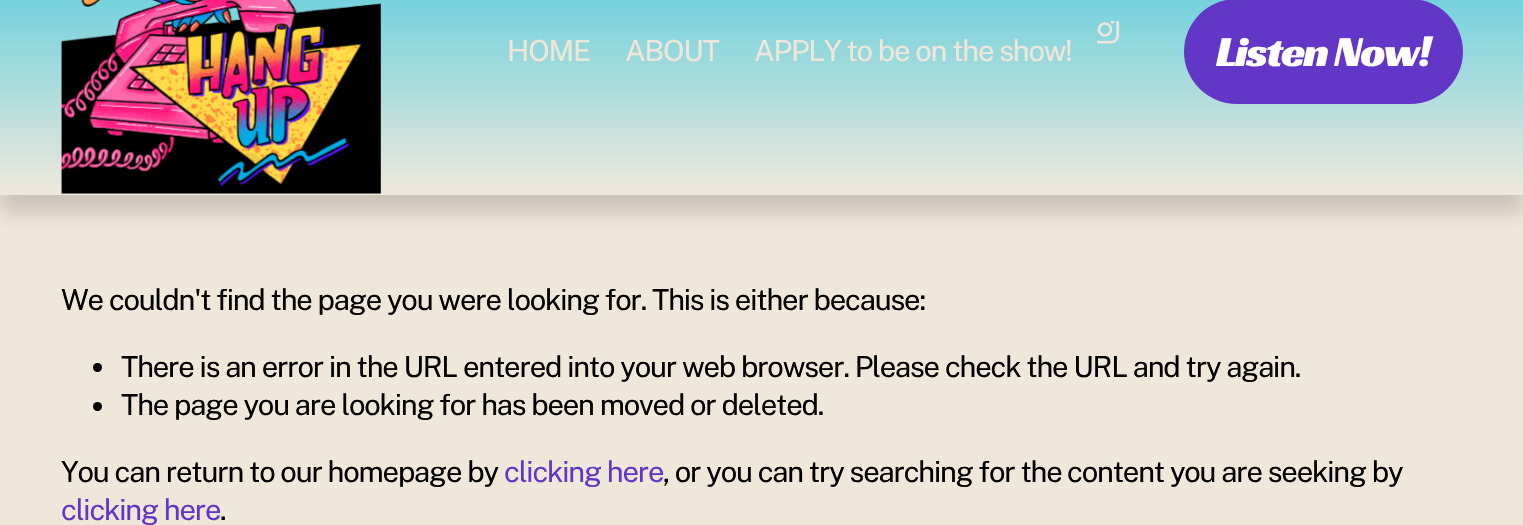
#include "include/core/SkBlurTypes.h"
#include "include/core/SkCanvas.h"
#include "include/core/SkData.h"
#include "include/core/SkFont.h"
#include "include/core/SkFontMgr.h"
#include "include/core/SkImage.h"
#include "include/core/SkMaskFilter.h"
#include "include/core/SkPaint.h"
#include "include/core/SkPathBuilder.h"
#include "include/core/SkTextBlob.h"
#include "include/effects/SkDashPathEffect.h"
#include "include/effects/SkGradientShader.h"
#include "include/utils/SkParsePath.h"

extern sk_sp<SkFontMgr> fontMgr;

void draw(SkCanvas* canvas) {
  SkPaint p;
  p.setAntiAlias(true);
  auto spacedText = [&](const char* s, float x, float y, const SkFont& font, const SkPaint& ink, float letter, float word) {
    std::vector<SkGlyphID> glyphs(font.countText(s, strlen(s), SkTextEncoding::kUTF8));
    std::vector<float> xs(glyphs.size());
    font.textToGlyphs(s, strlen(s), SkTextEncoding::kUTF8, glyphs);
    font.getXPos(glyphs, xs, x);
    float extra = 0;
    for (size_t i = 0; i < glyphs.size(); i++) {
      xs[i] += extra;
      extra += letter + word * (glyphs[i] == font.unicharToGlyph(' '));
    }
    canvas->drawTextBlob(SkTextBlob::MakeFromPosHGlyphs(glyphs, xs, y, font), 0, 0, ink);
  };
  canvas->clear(SkColorSetRGB(240, 231, 219));
  p.setColor(SkColorSetRGB(204, 196, 186));
  p.setMaskFilter(SkMaskFilter::MakeBlur(kNormal_SkBlurStyle, 9));
  canvas->drawRect(SkRect::MakeLTRB(0, -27, 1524, 213), p);
  p.setMaskFilter(nullptr);
  {
    const SkColor colors[] = {SkColorSetRGB(58, 200, 222), SkColorSetRGB(240, 232, 220)};
    const float stops[] = {0, 1};
    const SkPoint ends[] = {{762, -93}, {762, 195}};
    p.setShader(SkGradientShader::MakeLinear(ends, colors, stops, 2, SkTileMode::kClamp));
    p.setAlpha(255);
  }
  canvas->drawRect(SkRect::MakeLTRB(0, 0, 1523, 195), p);
  canvas->drawImageRect(SkImages::DeferredFromEncodedData(SkData::MakeFromFileName("images/1.png")), SkRect::MakeLTRB(61, 0, 381, 194), SkSamplingOptions());
  canvas->drawImageRect(SkImages::DeferredFromEncodedData(SkData::MakeFromFileName("images/2.png")), SkRect::MakeLTRB(1097, 21, 1119, 44), SkSamplingOptions());
  p.setShader(nullptr);
  p.setColor(SkColorSetRGB(99, 54, 199));
  canvas->drawRoundRect(SkRect::MakeLTRB(1184, -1, 1463, 104), 52.5f, 52.5f, p);
  p.setColor(SK_ColorBLACK);
  canvas->drawCircle(97.5f, 367.5f, 4.5f, p);
  canvas->drawCircle(97.5f, 406.5f, 4.5f, p);
  SkFont font1(fontMgr->matchFamilyStyle("Public Sans", SkFontStyle::Normal()), 29.15f);
  font1.setSubpixel(true);
  p.setColor(SkColorSetRGB(240, 231, 219));
  spacedText("HOME", 507, 61, font1, p, -1.17f, 0);
  spacedText("ABOUT", 625, 61, font1, p, -1.17f, 0);
  spacedText("APPLY to be on the show!", 754, 61, font1, p, -1.17f, 0);
  SkFont font2(fontMgr->matchFamilyStyle("Racing Sans One", SkFontStyle::Normal()), 43.75f);
  font2.setSubpixel(true);
  p.setColor(SK_ColorWHITE);
  spacedText("Listen Now!", 1216, 66, font2, p, -1.75f, 0);
  p.setColor(SK_ColorBLACK);
  spacedText("We couldn't find the page you were looking for. This is either because:", 61, 310, font1, p, -1.17f, 0);
  spacedText("There is an error in the URL entered into your web browser. Please check the URL and try again.", 121, 377, font1, p, -1.17f, 0);
  spacedText("The page you are looking for has been moved or deleted.", 121, 415, font1, p, -1.17f, 0);
  spacedText("You can return to our homepage by", 61, 482, font1, p, -1.17f, 0);
  p.setColor(SkColorSetRGB(99, 54, 199));
  spacedText("clicking here", 504, 482, font1, p, -1.17f, 0);
  p.setColor(SK_ColorBLACK);
  spacedText(", or you can try searching for the", 663, 482, font1, p, -1.17f, 0);
  spacedText("content you are seeking by", 1067, 482, font1, p, -1.17f, 0);
  p.setColor(SkColorSetRGB(99, 54, 199));
  spacedText("clicking here", 61, 520, font1, p, -1.17f, 0);
  p.setColor(SK_ColorBLACK);
  spacedText(".", 220, 520, font1, p, -1.17f, 0);
}
